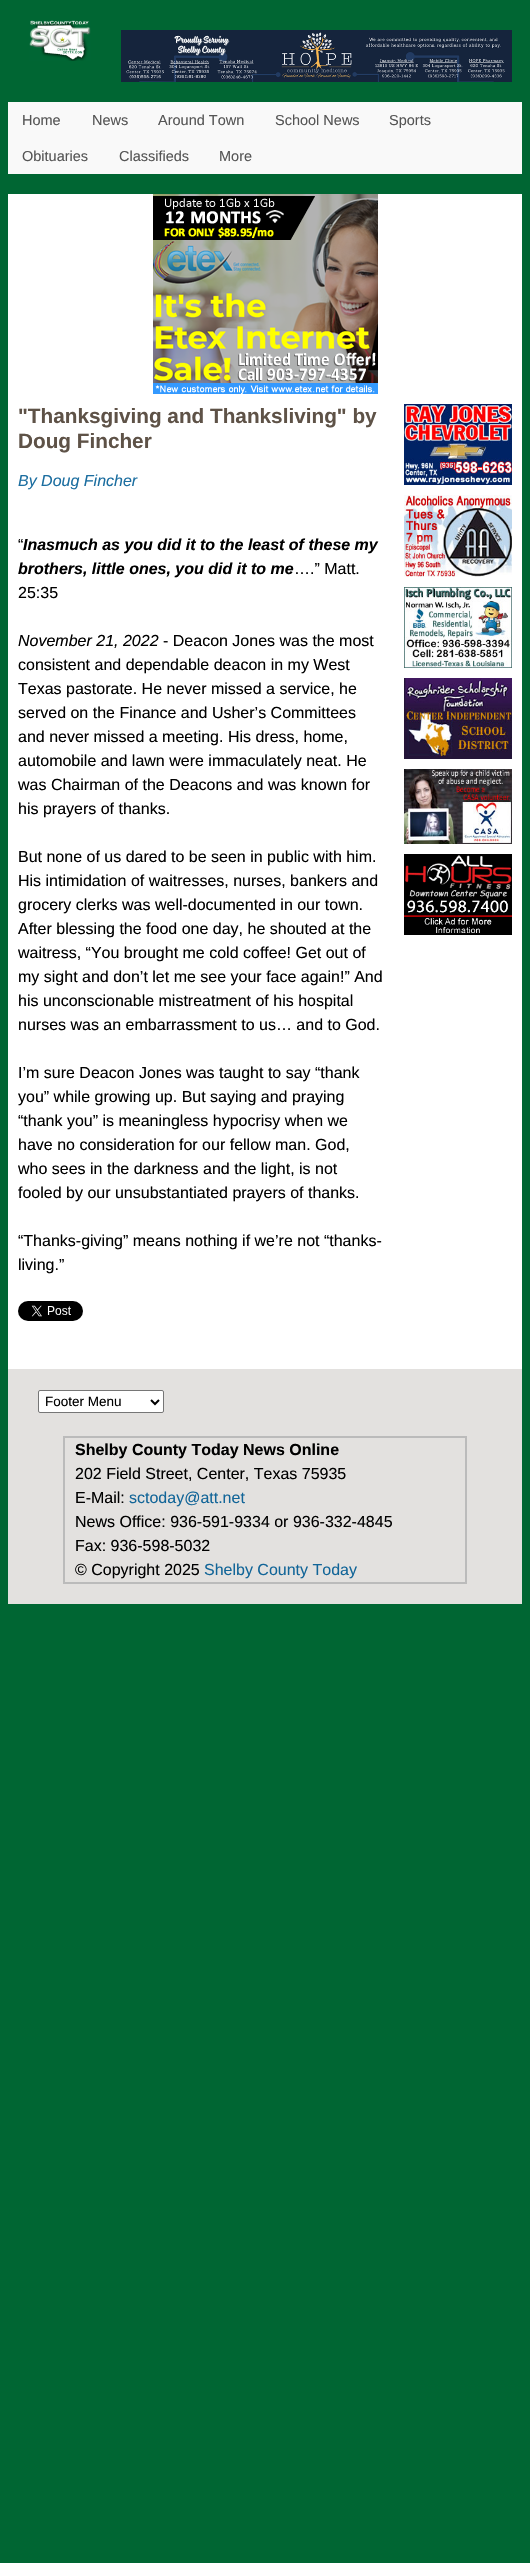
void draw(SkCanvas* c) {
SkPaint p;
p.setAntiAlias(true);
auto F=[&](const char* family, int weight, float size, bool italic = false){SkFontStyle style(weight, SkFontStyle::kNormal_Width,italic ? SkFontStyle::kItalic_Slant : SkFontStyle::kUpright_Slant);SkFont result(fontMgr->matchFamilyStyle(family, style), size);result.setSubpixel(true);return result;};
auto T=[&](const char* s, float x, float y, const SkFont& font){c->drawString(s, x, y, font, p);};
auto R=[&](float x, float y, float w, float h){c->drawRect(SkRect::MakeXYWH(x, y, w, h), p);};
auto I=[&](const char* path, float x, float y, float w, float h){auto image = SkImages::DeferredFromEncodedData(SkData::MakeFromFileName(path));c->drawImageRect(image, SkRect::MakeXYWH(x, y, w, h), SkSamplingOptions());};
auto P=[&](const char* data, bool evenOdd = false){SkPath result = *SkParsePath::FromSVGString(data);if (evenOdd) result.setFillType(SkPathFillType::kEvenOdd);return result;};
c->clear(0xff006633);
I("1.png",29,20,62,41);
I("2.png",121,30,391,52);
p.setColor(0xfff9f9f9);
R(8,102,514,72);
auto f1 = F("Liberation Sans",400,14.5);
p.setColor(0xff555555);
T("Home",22,125,f1);
T("News",92,125,f1);
T("Around Town",158,125,f1);
T("School News",275,125,f1);
T("Sports",389,125,f1);
T("Obituaries",22,161,f1);
T("Classifieds",119,161,f1);
T("More",219,161,f1);
p.setColor(0xffffffff);
R(8,194,514,1175);
I("3.png",153,194,225,200);
auto f2 = F("Liberation Sans",700,20.75);
p.setColor(0xff5e5247);
T("\"Thanksgiving and Thanksliving\" by",18,423,f2);
T("Doug Fincher",18,448,f2);
auto f3 = F("Liberation Sans",400,16,true);
p.setColor(0xff1c6ea0);
T("By Doug Fincher",18,486,f3);
auto f4 = F("Liberation Sans",400,16);
p.setColor(0xff000000);
T("“",18,550,f4);
auto f5 = F("Liberation Sans",700,16,true);
T("Inasmuch as you did it to the least of these my",23,550,f5);
T("brothers, little ones, you did it to me",18,574,f5);
T("….” Matt.",294,574,f4);
T("25:35",18,598,f4);
T("November 21, 2022",18,646,f3);
T("- Deacon Jones was the most",163,646,f4);
T("consistent and dependable deacon in my West",18,670,f4);
T("Texas pastorate. He never missed a service, he",18,694,f4);
T("served on the Finance and Usher’s Committees",18,718,f4);
T("and never missed a meeting. His dress, home,",18,742,f4);
T("automobile and lawn were immaculately neat. He",18,766,f4);
T("was Chairman of the Deacons and was known for",18,790,f4);
T("his prayers of thanks.",18,814,f4);
T("But none of us dared to be seen in public with him.",18,862,f4);
T("His intimidation of waitresses, nurses, bankers and",18,886,f4);
T("grocery clerks was well-documented in our town.",18,910,f4);
T("After blessing the food one day, he shouted at the",18,934,f4);
T("waitress, “You brought me cold coffee! Get out of",18,958,f4);
T("my sight and don’t let me see your face again!” And",18,982,f4);
T("his unconscionable mistreatment of his hospital",18,1006,f4);
T("nurses was an embarrassment to us… and to God.",18,1030,f4);
T("I’m sure Deacon Jones was taught to say “thank",18,1078,f4);
T("you” while growing up. But saying and praying",18,1102,f4);
T("“thank you” is meaningless hypocrisy when we",18,1126,f4);
T("have no consideration for our fellow man. God,",18,1150,f4);
T("who sees in the darkness and the light, is not",18,1174,f4);
T("fooled by our unsubstantiated prayers of thanks.",18,1198,f4);
T("“Thanks-giving” means nothing if we’re not “thanks-",18,1246,f4);
T("living.”",18,1270,f4);
I("4.png",18,1301,65,20);
I("5.png",404,404,108,81);
I("6.png",404,495,108,82);
I("7.png",404,587,108,81);
I("8.png",404,678,108,81);
I("9.png",404,769,108,75);
I("10.png",404,854,108,81);
p.setColor(0xffe3e1df);
R(8,1369,514,235);
p.setColor(0xffffffff);
c->drawRoundRect(SkRect::MakeXYWH(38.5,1390.5,125,22),1.5,1.5,p);
p.setStroke(true);
p.setStrokeWidth(1);
p.setColor(0xff767676);
c->drawRoundRect(SkRect::MakeXYWH(38.5,1390.5,125,22),1.5,1.5,p);
p.setStrokeWidth(2);
p.setColor(0xff000000);
c->drawPath(P("M151 1400l4 4l4-4"),p);
auto f6 = F("Liberation Sans",400,13.5);
p.setStroke(false);
T("Footer Menu",45,1406,f6);
p.setStroke(true);
p.setColor(0xffbbbbbb);
c->drawRect(SkRect::MakeXYWH(64,1437,402,146),p);
auto f7 = F("Liberation Sans",700,16);
p.setStroke(false);
p.setColor(0xff000000);
T("Shelby County Today News Online",75,1455,f7);
T("202 Field Street, Center, Texas 75935",75,1479,f4);
T("E-Mail:",75,1503,f4);
p.setColor(0xff126598);
T("sctoday@att.net",129,1503,f4);
p.setColor(0xff000000);
T("News Office: 936-591-9334 or 936-332-4845",75,1527,f4);
T("Fax: 936-598-5032",75,1551,f4);
T("© Copyright 2025",75,1575,f4);
p.setColor(0xff126598);
T("Shelby County Today",204,1575,f4);
}
